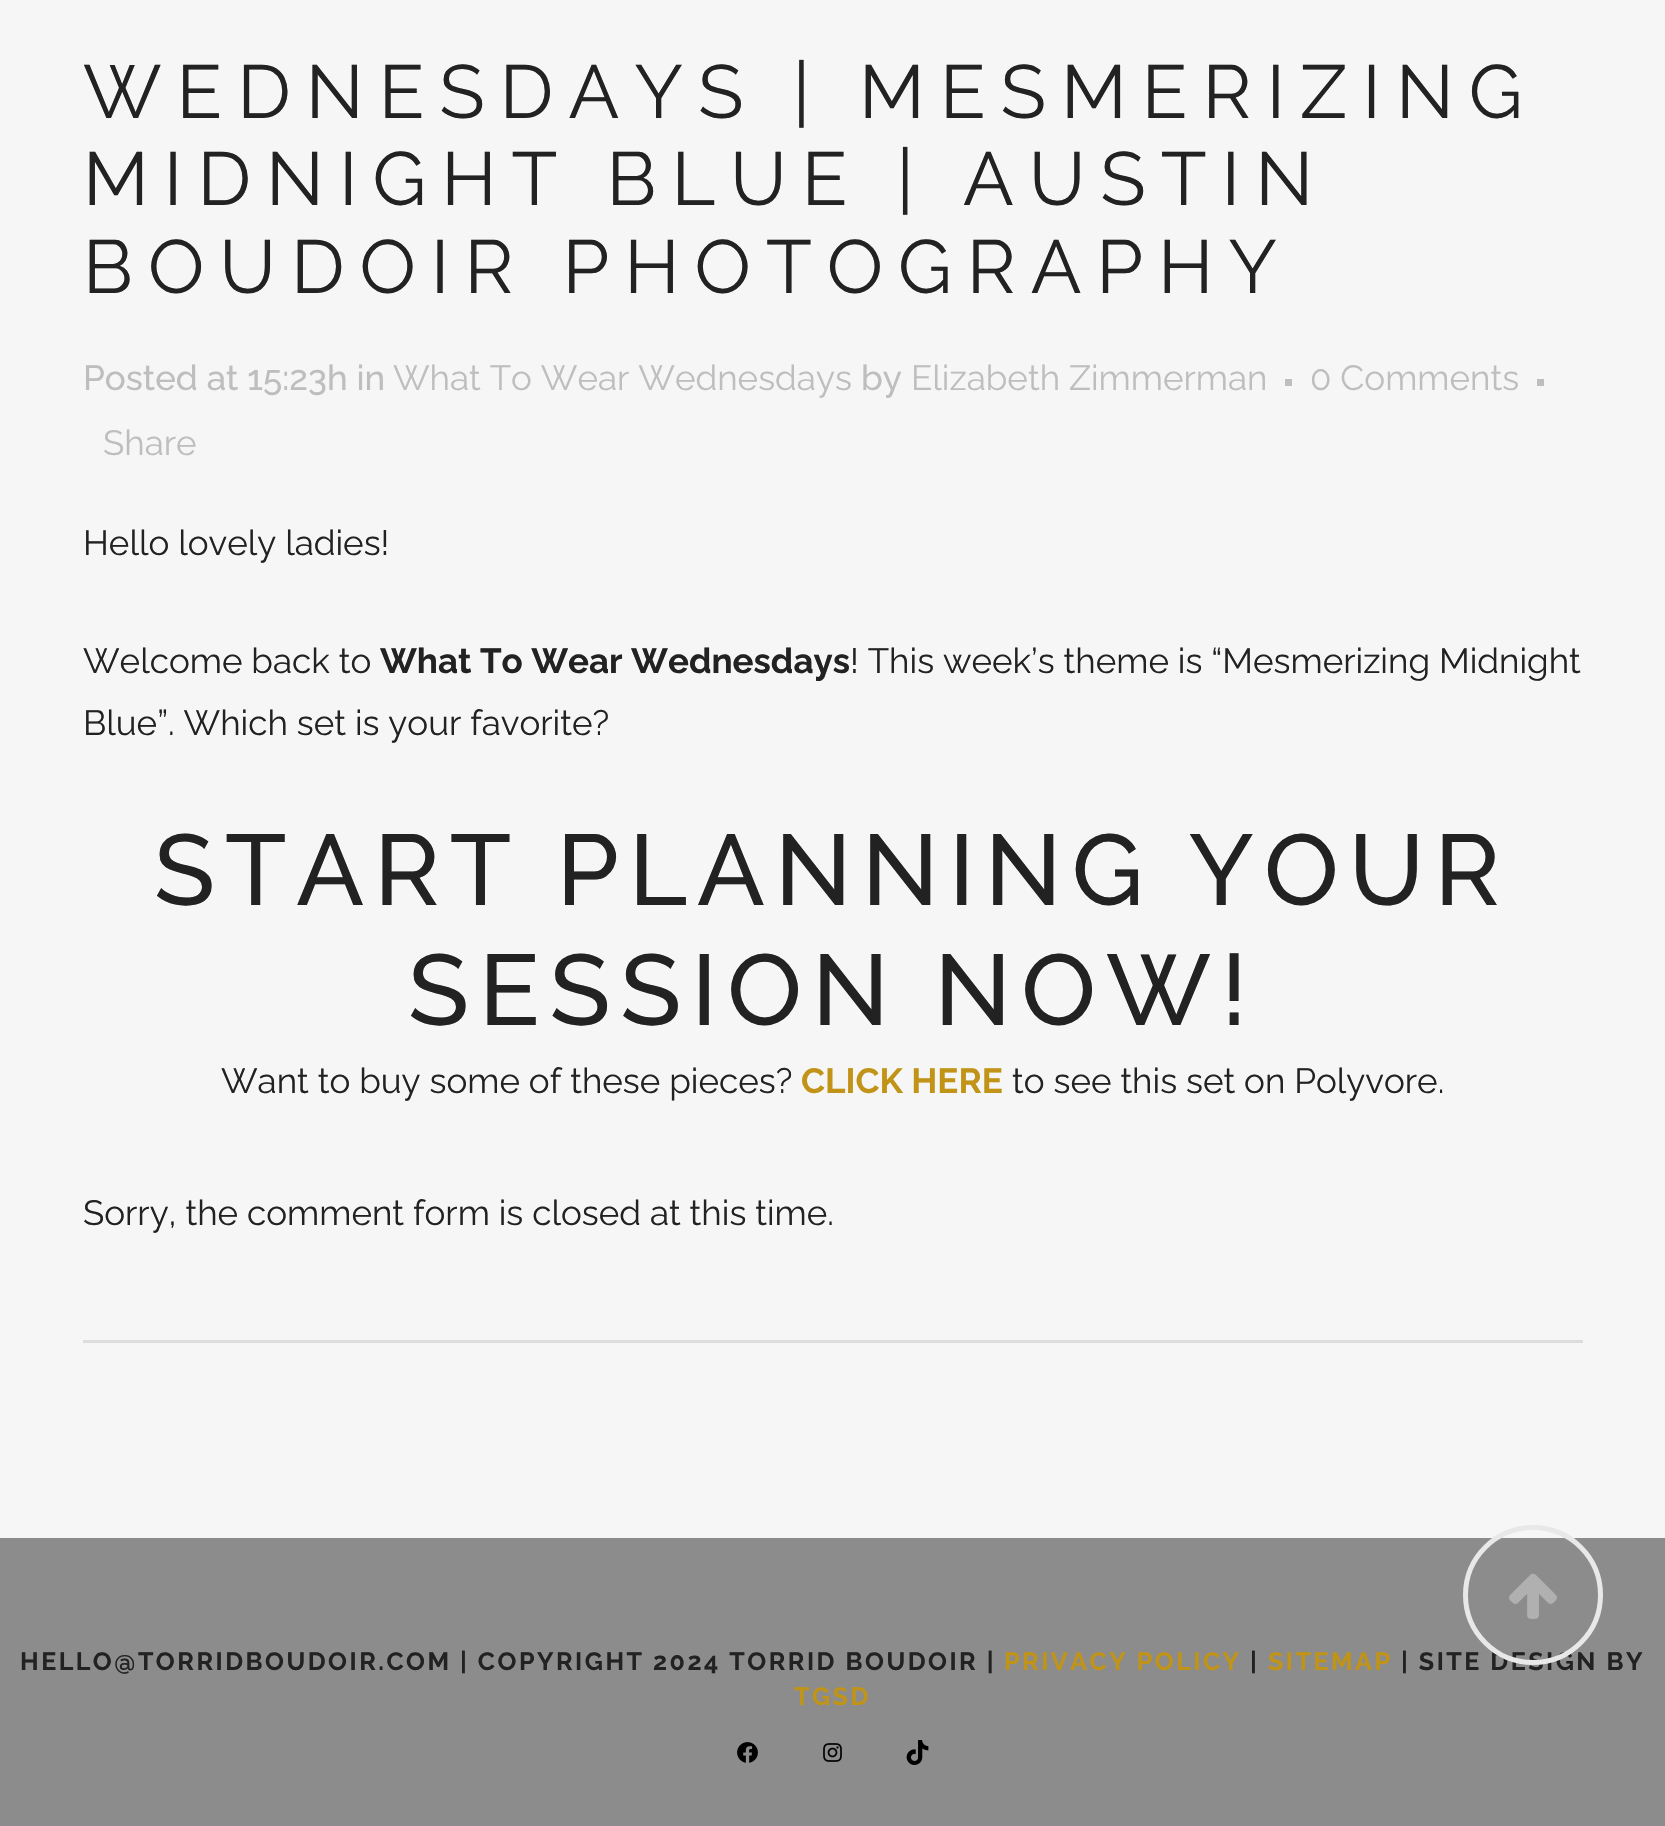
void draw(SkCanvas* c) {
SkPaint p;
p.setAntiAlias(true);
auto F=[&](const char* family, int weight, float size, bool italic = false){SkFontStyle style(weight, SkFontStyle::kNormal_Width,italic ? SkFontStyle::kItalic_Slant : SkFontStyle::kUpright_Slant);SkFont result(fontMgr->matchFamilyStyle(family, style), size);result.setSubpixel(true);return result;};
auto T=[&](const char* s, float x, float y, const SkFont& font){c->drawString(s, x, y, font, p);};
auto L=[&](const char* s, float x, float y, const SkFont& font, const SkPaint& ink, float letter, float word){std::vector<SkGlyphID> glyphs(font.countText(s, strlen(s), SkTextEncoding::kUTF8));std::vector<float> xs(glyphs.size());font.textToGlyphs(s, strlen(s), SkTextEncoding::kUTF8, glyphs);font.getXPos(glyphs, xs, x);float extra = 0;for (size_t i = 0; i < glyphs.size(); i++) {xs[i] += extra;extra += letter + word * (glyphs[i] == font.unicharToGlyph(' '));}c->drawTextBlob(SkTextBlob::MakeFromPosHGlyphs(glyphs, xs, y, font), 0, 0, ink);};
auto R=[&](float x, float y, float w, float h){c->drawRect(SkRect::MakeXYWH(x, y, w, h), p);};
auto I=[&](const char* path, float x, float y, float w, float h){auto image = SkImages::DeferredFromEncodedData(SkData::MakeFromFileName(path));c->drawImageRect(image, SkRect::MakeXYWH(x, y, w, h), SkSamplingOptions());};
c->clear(0xfff6f6f6);
auto f1 = F("Raleway",100,75);
p.setColor(0xff222222);
L("WEDNESDAYS | MESMERIZING",83,118,f1,p,15,0);
L("MIDNIGHT BLUE | AUSTIN",83,205,f1,p,15,0);
L("BOUDOIR PHOTOGRAPHY",83,293,f1,p,15,0);
auto f2 = F("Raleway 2",100,35);
p.setColor(0xffbebebe);
T("Posted at 15:23h in",83,390,f2);
auto f3 = F("Raleway",100,35);
T("What To Wear Wednesdays",393,390,f3);
T("by",861,390,f2);
T("Elizabeth Zimmerman",911,390,f3);
R(1285,379,7,7);
T("0 Comments",1310,390,f3);
R(1537,379,7,7);
T("Share",103,455,f3);
p.setColor(0xff222222);
T("Hello lovely ladies!",83,555,f3);
T("Welcome back to",83,673,f3);
auto f4 = F("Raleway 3",100,35);
T("What To Wear Wednesdays",380,673,f4);
T("! This week’s theme is “Mesmerizing Midnight",850,673,f3);
T("Blue”. Which set is your favorite?",83,735,f3);
auto f5 = F("Raleway 2",100,100);
L("START PLANNING YOUR",154,905,f5,p,10,0);
L("SESSION NOW!",408,1025,f5,p,10,0);
T("Want to buy some of these pieces?",221,1093,f3);
p.setColor(0xffc19417);
T("CLICK HERE",801,1093,f4);
p.setColor(0xff222222);
T("to see this set on Polyvore.",1012,1093,f3);
T("Sorry, the comment form is closed at this time.",83,1225,f3);
p.setColor(0xffdddddd);
R(83,1340,1500,3);
p.setColor(0xff8c8c8c);
R(0,1538,1665,288);
auto f6 = F("Raleway 3",100,25);
p.setColor(0xff222222);
L("| SITE DESIGN BY",1401,1670,f6,p,2.5,0);
p.setStroke(true);
p.setStrokeWidth(5);
p.setColor(0xffe8e8e8);
c->drawCircle(1533,1595,67.5,p);
I("1.png",1509,1573,48,46);
p.setStroke(false);
p.setColor(0xff222222);
L("HELLO@TORRIDBOUDOIR.COM | COPYRIGHT 2024 TORRID BOUDOIR |",20,1670,f6,p,2.5,0);
p.setColor(0xffc19417);
L("PRIVACY POLICY",1004,1670,f6,p,2.5,0);
p.setColor(0xff222222);
L("|",1250,1670,f6,p,2.5,0);
p.setColor(0xffc19417);
L("SITEMAP",1268,1670,f6,p,2.5,0);
L("TGSD",794,1705,f6,p,2.5,0);
I("2.png",737,1742,21,21);
I("3.png",823,1743,19,19);
I("4.png",906,1740,23,25);
}
